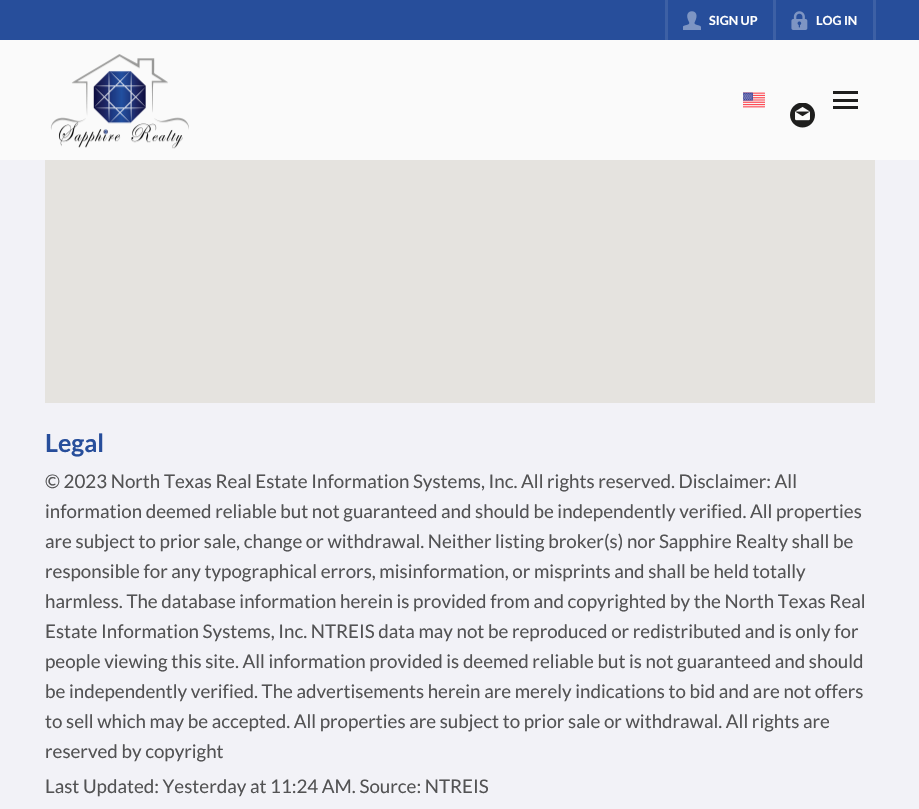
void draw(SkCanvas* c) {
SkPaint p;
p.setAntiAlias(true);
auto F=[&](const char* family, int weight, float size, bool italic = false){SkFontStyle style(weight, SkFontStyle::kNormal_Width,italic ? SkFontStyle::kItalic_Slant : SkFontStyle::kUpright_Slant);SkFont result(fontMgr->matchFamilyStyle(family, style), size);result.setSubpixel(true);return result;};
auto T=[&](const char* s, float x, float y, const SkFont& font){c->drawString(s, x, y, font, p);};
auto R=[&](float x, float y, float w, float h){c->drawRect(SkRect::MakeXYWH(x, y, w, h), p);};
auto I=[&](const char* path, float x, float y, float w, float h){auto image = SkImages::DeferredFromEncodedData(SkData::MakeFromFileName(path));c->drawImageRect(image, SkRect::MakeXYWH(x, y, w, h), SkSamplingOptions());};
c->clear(0xfff2f2f7);
p.setColor(0xff274e9b);
R(0,0,919,40);
p.setColor(0xff3d60a5);
R(873,0,3,40);
R(665,0,3,40);
I("1.png",683,11,18,19);
auto f1 = F("Lato",700,12.5);
p.setColor(0xffffffff);
T("SIGN UP",709,25,f1);
p.setColor(0xff3d60a5);
R(773,0,3,40);
I("2.png",791,11,17,19);
p.setColor(0xffffffff);
T("LOG IN",816,25,f1);
p.setColor(0xfffafafa);
R(0,40,919,120);
I("3.png",50,54,139,95);
I("4.png",743,92,22,16);
p.setColor(0xff1e1e1d);
R(833,91,25,3);
R(833,99,25,3);
R(833,106,25,3);
I("5.png",790,103,25,25);
p.setColor(0xffe5e3df);
R(45,160,830,243);
auto f2 = F("Lato",700,25);
p.setColor(0xff274e9b);
T("Legal",45,452,f2);
auto f3 = F("Lato",400,18.75);
p.setColor(0xff535354);
T("© 2023 North Texas Real Estate Information Systems, Inc. All rights reserved. Disclaimer: All",45,488,f3);
T("information deemed reliable but not guaranteed and should be independently verified. All properties",45,518,f3);
T("are subject to prior sale, change or withdrawal. Neither listing broker(s) nor Sapphire Realty shall be",45,548,f3);
T("responsible for any typographical errors, misinformation, or misprints and shall be held totally",45,578,f3);
T("harmless. The database information herein is provided from and copyrighted by the North Texas Real",45,608,f3);
T("Estate Information Systems, Inc. NTREIS data may not be reproduced or redistributed and is only for",45,638,f3);
T("people viewing this site. All information provided is deemed reliable but is not guaranteed and should",45,668,f3);
T("be independently verified. The advertisements herein are merely indications to bid and are not offers",45,698,f3);
T("to sell which may be accepted. All properties are subject to prior sale or withdrawal. All rights are",45,728,f3);
T("reserved by copyright",45,758,f3);
T("Last Updated: Yesterday at 11:24 AM. Source: NTREIS",45,793,f3);
}
